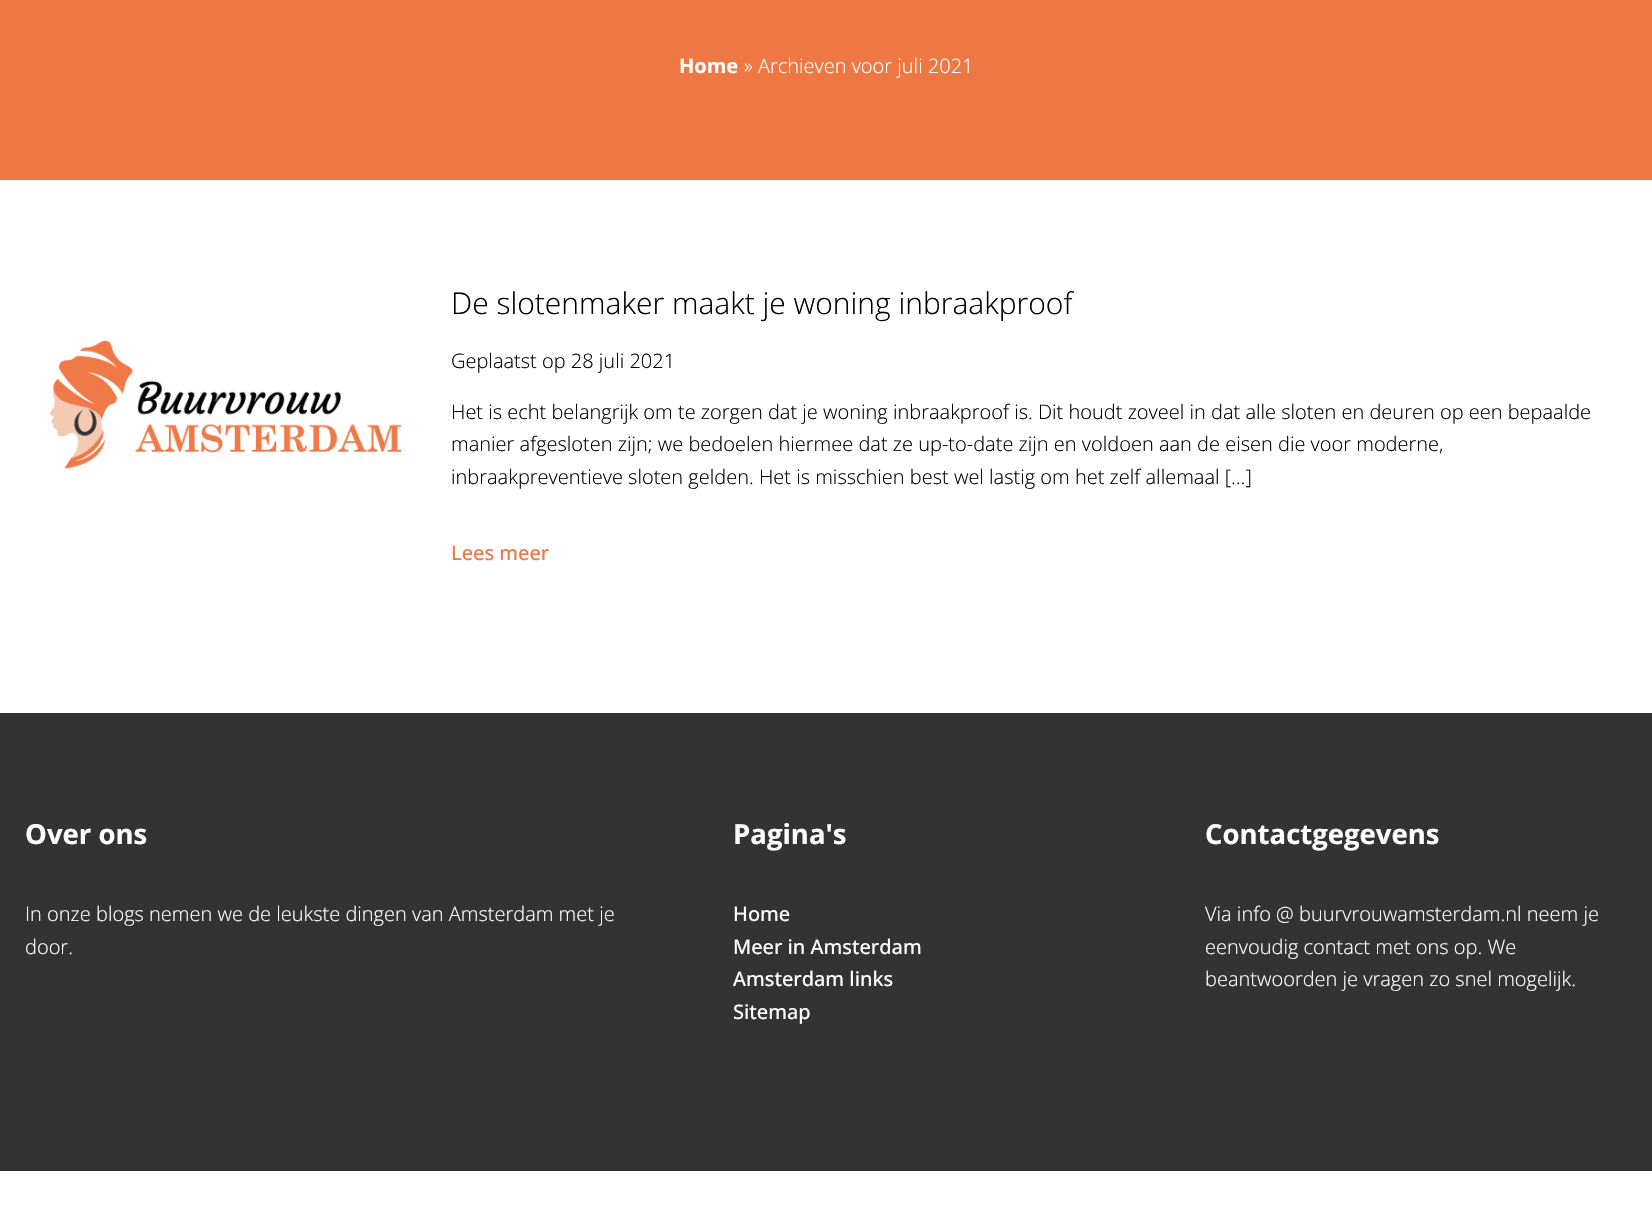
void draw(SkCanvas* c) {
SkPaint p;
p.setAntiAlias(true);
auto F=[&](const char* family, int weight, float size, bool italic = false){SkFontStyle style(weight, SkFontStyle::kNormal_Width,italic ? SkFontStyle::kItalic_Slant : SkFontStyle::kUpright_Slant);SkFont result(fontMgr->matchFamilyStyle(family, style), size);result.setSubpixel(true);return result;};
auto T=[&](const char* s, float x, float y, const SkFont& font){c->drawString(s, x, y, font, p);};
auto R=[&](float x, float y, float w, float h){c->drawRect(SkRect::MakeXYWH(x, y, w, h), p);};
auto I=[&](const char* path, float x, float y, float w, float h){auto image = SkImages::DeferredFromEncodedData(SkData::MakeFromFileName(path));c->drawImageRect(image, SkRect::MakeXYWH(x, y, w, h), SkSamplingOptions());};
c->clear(0xffffffff);
p.setColor(0xffef7743);
R(0,0,1652,180);
auto f1 = F("Open Sans",700,20);
p.setColor(0xffffffff);
T("Home",679,73,f1);
auto f2 = F("Open Sans",300,20);
T("» Archieven voor juli 2021",744,73,f2);
I("1.png",50,340,352,129);
auto f3 = F("Open Sans",300,30);
p.setColor(0xff000000);
T("De slotenmaker maakt je woning inbraakproof",451,314,f3);
T("Geplaatst op 28 juli 2021",451,368,f2);
T("Het is echt belangrijk om te zorgen dat je woning inbraakproof is. Dit houdt zoveel in dat alle sloten en deuren op een bepaalde",451,419,f2);
T("manier afgesloten zijn; we bedoelen hiermee dat ze up-to-date zijn en voldoen aan de eisen die voor moderne,",451,451,f2);
T("inbraakpreventieve sloten gelden. Het is misschien best wel lastig om het zelf allemaal […]",451,484,f2);
auto f4 = F("Open Sans",500,20);
p.setColor(0xffef7743);
T("Lees meer",451,560,f4);
p.setColor(0xff333333);
R(0,713,1652,458);
auto f5 = F("Open Sans",700,27.5);
p.setColor(0xffffffff);
T("Over ons",25,844,f5);
T("In onze blogs nemen we de leukste dingen van Amsterdam met je",25,921,f2);
T("door.",25,954,f2);
T("Pagina's",733,844,f5);
T("Home",733,921,f4);
T("Meer in Amsterdam",733,954,f4);
T("Amsterdam links",733,986,f4);
T("Sitemap",733,1019,f4);
T("Contactgegevens",1205,844,f5);
T("Via info @ buurvrouwamsterdam.nl neem je",1205,921,f2);
T("eenvoudig contact met ons op. We",1205,954,f2);
T("beantwoorden je vragen zo snel mogelijk.",1205,986,f2);
}
